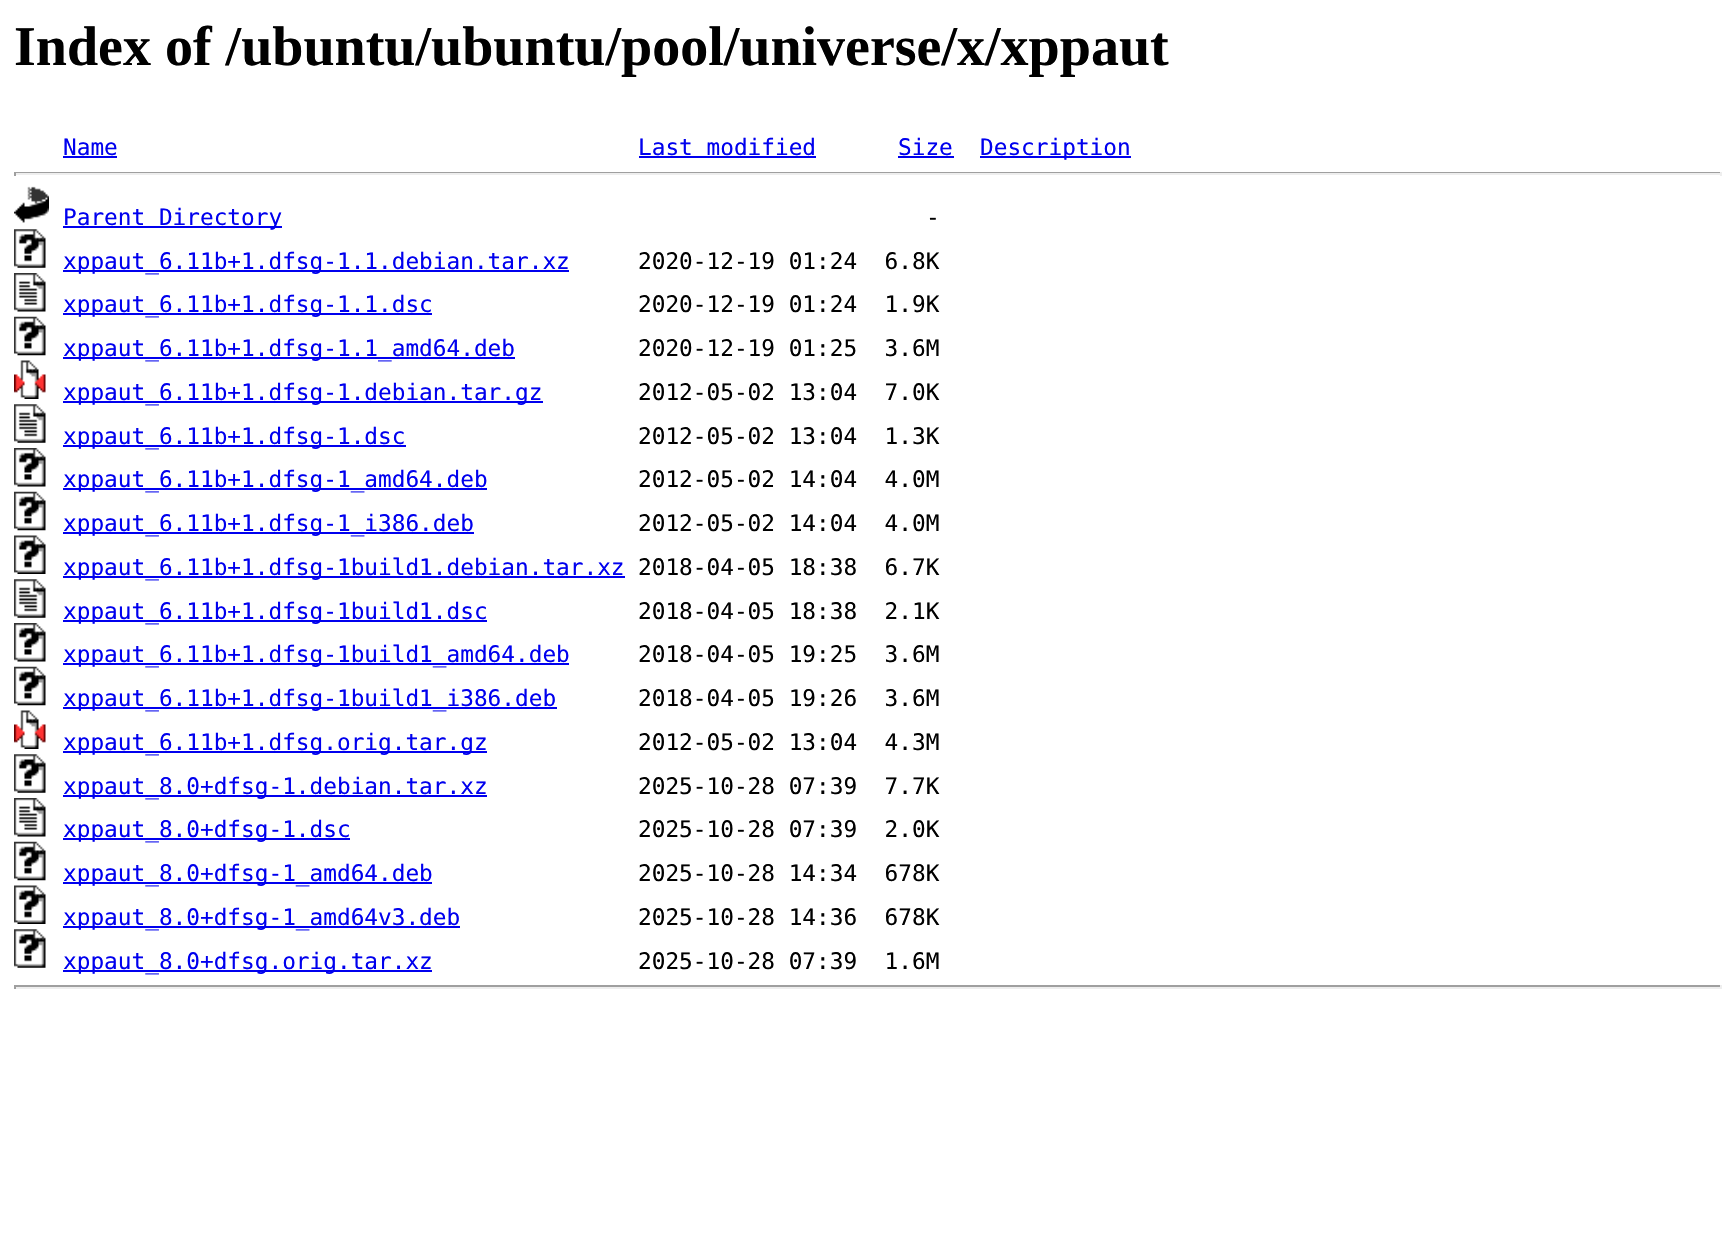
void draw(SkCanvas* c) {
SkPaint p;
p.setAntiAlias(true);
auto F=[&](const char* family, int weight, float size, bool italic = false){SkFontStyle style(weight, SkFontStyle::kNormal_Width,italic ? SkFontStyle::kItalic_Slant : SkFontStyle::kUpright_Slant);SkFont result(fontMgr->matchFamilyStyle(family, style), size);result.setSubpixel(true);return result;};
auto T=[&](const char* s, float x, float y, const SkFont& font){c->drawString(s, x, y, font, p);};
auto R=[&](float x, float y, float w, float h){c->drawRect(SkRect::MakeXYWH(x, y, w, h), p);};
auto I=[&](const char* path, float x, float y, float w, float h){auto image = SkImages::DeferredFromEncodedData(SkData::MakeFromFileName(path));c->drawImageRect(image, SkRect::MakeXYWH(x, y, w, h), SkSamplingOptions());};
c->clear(0xffffffff);
auto f1 = F("Liberation Serif",700,56);
p.setColor(0xff000000);
T("Index of /ubuntu/ubuntu/pool/universe/x/xppaut",14,65,f1);
auto f2 = F("DejaVu Sans Mono",400,22.75);
p.setColor(0xff0000ee);
T("Name",63,155,f2);
R(63,156,54,2);
T("Last modified",638,155,f2);
R(639,156,177,2);
T("Size",898,155,f2);
R(898,156,56,2);
R(980,156,151,2);
T("Description",980,155,f2);
p.setColor(0xff9f9f9f);
R(14,172,1708,1);
p.setColor(0xffeeeeee);
R(1720,172,2,4);
R(14,173,1708,2);
p.setColor(0xff9f9f9f);
R(14,172,2,4);
I("1.png",14,186,35,37);
p.setColor(0xff0000ee);
R(63,226,219,2);
T("Parent Directory",63,225,f2);
p.setColor(0xff000000);
T("-",926,225,f2);
I("2.png",14,229,32,39);
p.setColor(0xff0000ee);
R(63,270,506,2);
T("xppaut_6.11b+1.dfsg-1.1.debian.tar.xz",63,269,f2);
p.setColor(0xff000000);
T("2020-12-19 01:24  6.8K",638,269,f2);
I("3.png",14,273,32,39);
p.setColor(0xff0000ee);
R(63,313,369,2);
T("xppaut_6.11b+1.dfsg-1.1.dsc",63,312,f2);
p.setColor(0xff000000);
T("2020-12-19 01:24  1.9K",638,312,f2);
I("4.png",14,316,32,40);
p.setColor(0xff0000ee);
R(63,357,452,2);
T("xppaut_6.11b+1.dfsg-1.1_amd64.deb",63,356,f2);
p.setColor(0xff000000);
T("2020-12-19 01:25  3.6M",638,356,f2);
I("5.png",14,360,32,39);
p.setColor(0xff0000ee);
R(63,401,480,2);
T("xppaut_6.11b+1.dfsg-1.debian.tar.gz",63,400,f2);
p.setColor(0xff000000);
T("2012-05-02 13:04  7.0K",638,400,f2);
I("6.png",14,404,32,39);
p.setColor(0xff0000ee);
R(63,445,343,2);
T("xppaut_6.11b+1.dfsg-1.dsc",63,444,f2);
p.setColor(0xff000000);
T("2012-05-02 13:04  1.3K",638,444,f2);
I("7.png",14,448,32,39);
p.setColor(0xff0000ee);
R(63,488,424,2);
T("xppaut_6.11b+1.dfsg-1_amd64.deb",63,487,f2);
p.setColor(0xff000000);
T("2012-05-02 14:04  4.0M",638,487,f2);
I("4.png",14,491,32,40);
p.setColor(0xff0000ee);
R(63,532,411,2);
T("xppaut_6.11b+1.dfsg-1_i386.deb",63,531,f2);
p.setColor(0xff000000);
T("2012-05-02 14:04  4.0M",638,531,f2);
I("8.png",14,535,32,39);
p.setColor(0xff0000ee);
R(63,576,562,2);
T("xppaut_6.11b+1.dfsg-1build1.debian.tar.xz",63,575,f2);
p.setColor(0xff000000);
T("2018-04-05 18:38  6.7K",638,575,f2);
I("6.png",14,579,32,39);
p.setColor(0xff0000ee);
R(63,620,424,2);
T("xppaut_6.11b+1.dfsg-1build1.dsc",63,619,f2);
p.setColor(0xff000000);
T("2018-04-05 18:38  2.1K",638,619,f2);
I("7.png",14,623,32,39);
p.setColor(0xff0000ee);
R(63,663,506,2);
T("xppaut_6.11b+1.dfsg-1build1_amd64.deb",63,662,f2);
p.setColor(0xff000000);
T("2018-04-05 19:25  3.6M",638,662,f2);
I("4.png",14,666,32,40);
p.setColor(0xff0000ee);
R(63,707,494,2);
T("xppaut_6.11b+1.dfsg-1build1_i386.deb",63,706,f2);
p.setColor(0xff000000);
T("2018-04-05 19:26  3.6M",638,706,f2);
I("5.png",14,710,32,39);
p.setColor(0xff0000ee);
R(63,751,424,2);
T("xppaut_6.11b+1.dfsg.orig.tar.gz",63,750,f2);
p.setColor(0xff000000);
T("2012-05-02 13:04  4.3M",638,750,f2);
I("2.png",14,754,32,39);
p.setColor(0xff0000ee);
R(63,795,424,2);
T("xppaut_8.0+dfsg-1.debian.tar.xz",63,794,f2);
p.setColor(0xff000000);
T("2025-10-28 07:39  7.7K",638,794,f2);
I("3.png",14,798,32,39);
p.setColor(0xff0000ee);
R(63,838,287,2);
T("xppaut_8.0+dfsg-1.dsc",63,837,f2);
p.setColor(0xff000000);
T("2025-10-28 07:39  2.0K",638,837,f2);
I("4.png",14,841,32,40);
p.setColor(0xff0000ee);
R(63,882,369,2);
T("xppaut_8.0+dfsg-1_amd64.deb",63,881,f2);
p.setColor(0xff000000);
T("2025-10-28 14:34  678K",638,881,f2);
I("8.png",14,885,32,39);
p.setColor(0xff0000ee);
R(63,926,397,2);
T("xppaut_8.0+dfsg-1_amd64v3.deb",63,925,f2);
p.setColor(0xff000000);
T("2025-10-28 14:36  678K",638,925,f2);
I("2.png",14,929,32,39);
p.setColor(0xff0000ee);
R(63,970,369,2);
T("xppaut_8.0+dfsg.orig.tar.xz",63,969,f2);
p.setColor(0xff000000);
T("2025-10-28 07:39  1.6M",638,969,f2);
p.setColor(0xff9f9f9f);
R(14,985,1708,2);
p.setColor(0xffeeeeee);
R(1720,985,2,4);
R(14,987,1708,2);
p.setColor(0xff9f9f9f);
R(14,985,2,4);
}
